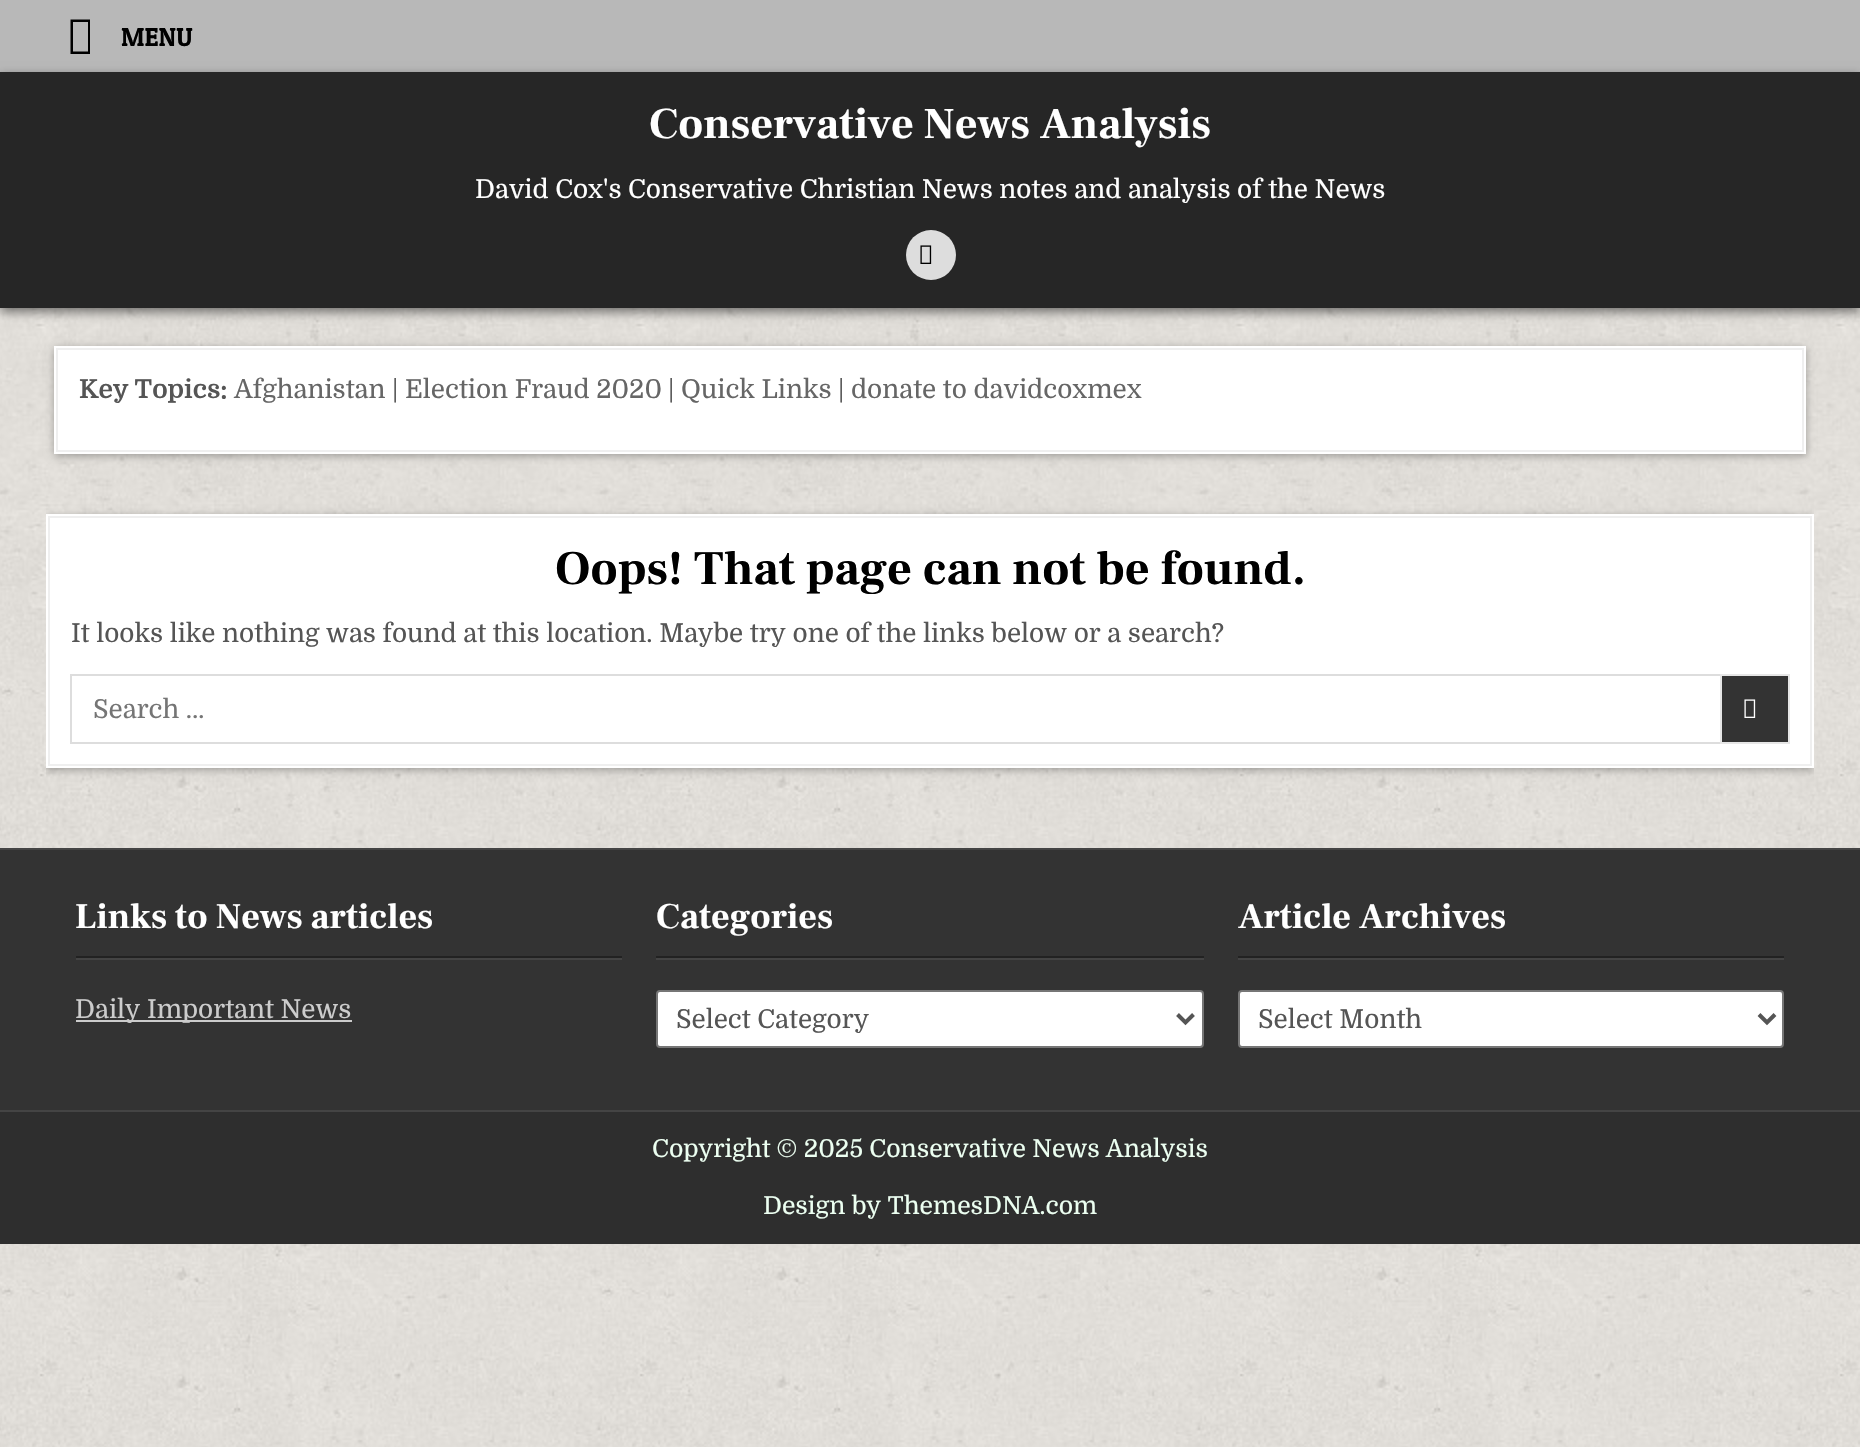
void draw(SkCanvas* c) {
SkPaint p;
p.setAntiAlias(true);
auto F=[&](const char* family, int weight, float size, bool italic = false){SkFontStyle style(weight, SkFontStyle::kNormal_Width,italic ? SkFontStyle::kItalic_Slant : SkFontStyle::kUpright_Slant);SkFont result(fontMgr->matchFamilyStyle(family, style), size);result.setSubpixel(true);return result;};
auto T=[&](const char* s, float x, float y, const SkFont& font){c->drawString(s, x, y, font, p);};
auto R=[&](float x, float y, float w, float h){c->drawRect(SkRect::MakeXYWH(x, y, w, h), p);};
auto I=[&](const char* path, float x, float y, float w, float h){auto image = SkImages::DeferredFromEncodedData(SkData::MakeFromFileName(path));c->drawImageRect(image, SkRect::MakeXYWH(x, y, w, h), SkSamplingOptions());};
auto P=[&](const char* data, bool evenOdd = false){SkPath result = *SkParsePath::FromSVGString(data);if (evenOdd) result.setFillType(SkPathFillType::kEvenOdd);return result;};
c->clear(0xffffffff);
I("1.png",0,308,1860,1139);
p.setColor(0xffb8b8b8);
R(0,0,1860,72);
p.setColor(0xff000000);
c->drawPath(P("M70.5 54v-34.5h19.5v34.5zm2.5-2.5h15v-29.5h-15z"),p);
auto f1 = F("Patua One",400,26);
T("MENU",121,46,f1);
p.setColor(0x80000000);
p.setMaskFilter(SkMaskFilter::MakeBlur(kNormal_SkBlurStyle, 5));
c->drawRect(SkRect::MakeXYWH(0,76,1860,236),p);
p.setMaskFilter(nullptr);
p.setColor(0xff262626);
R(0,72,1860,236);
auto f2 = F("Frank Ruhl Libre",700,44);
p.setColor(0xffffffff);
T("Conservative News Analysis",649,138,f2);
auto f3 = F("Domine",400,26);
T("David Cox's Conservative Christian News notes and analysis of the News",475,198,f3);
p.setColor(0xffdddddd);
c->drawCircle(931,255,25,p);
I("2.png",920,245,12,19);
p.setColor(0x4d000000);
p.setMaskFilter(SkMaskFilter::MakeBlur(kNormal_SkBlurStyle, 4));
c->drawRect(SkRect::MakeXYWH(54,348,1752,108),p);
p.setMaskFilter(nullptr);
p.setColor(0xffffffff);
R(54,346,1752,108);
p.setStroke(true);
p.setStrokeWidth(2);
p.setColor(0xffefefef);
c->drawRect(SkRect::MakeXYWH(57,349,1746,102),p);
auto f4 = F("Domine",700,26);
p.setStroke(false);
p.setColor(0xff555555);
T("Key Topics:",79,398,f4);
p.setColor(0xff666666);
T("Afghanistan",234,398,f3);
p.setColor(0xff555555);
T("|",392,398,f3);
p.setColor(0xff666666);
T("Election Fraud 2020",405,398,f3);
p.setColor(0xff555555);
T("|",668,398,f3);
p.setColor(0xff666666);
T("Quick Links",681,398,f3);
p.setColor(0xff555555);
T("|",838,398,f3);
p.setColor(0xff666666);
T("donate to davidcoxmex",851,398,f3);
c->save();
c->clipRect(SkRect::MakeXYWH(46,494,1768,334));
p.setColor(0x4d000000);
p.setMaskFilter(SkMaskFilter::MakeBlur(kNormal_SkBlurStyle, 4));
c->drawRect(SkRect::MakeXYWH(46,516,1768,254),p);
p.setMaskFilter(nullptr);
c->restore();
p.setColor(0xffffffff);
R(46,514,1768,254);
p.setStroke(true);
p.setColor(0xffefefef);
c->drawRect(SkRect::MakeXYWH(49,517,1762,248),p);
c->save();
c->clipRect(SkRect::MakeXYWH(78,546,1704,48));
auto f5 = F("Frank Ruhl Libre",700,48);
p.setStroke(false);
p.setColor(0xff000000);
T("Oops! That page can not be found.",555,584,f5);
c->restore();
p.setColor(0xff555555);
T("It looks like nothing was found at this location. Maybe try one of the links below or a search?",71,642,f3);
p.setStroke(true);
p.setColor(0xffdddddd);
c->drawRect(SkRect::MakeXYWH(71,675,1718,68),p);
p.setStroke(false);
p.setColor(0xff757575);
T("Search …",93,718,f3);
p.setColor(0xff333333);
c->drawRect(SkRect::MakeXYWH(1721,675,68,68),p);
p.setStroke(true);
p.setColor(0xffe6e6e6);
c->drawRect(SkRect::MakeXYWH(1721,675,68,68),p);
I("3.png",1744,699,12,19);
p.setStroke(false);
p.setColor(0xff333333);
R(0,850,1860,260);
p.setColor(0xff444444);
R(0,848,1860,2);
R(76,958,546,2);
p.setColor(0xff222222);
R(76,956,546,2);
auto f6 = F("Frank Ruhl Libre",700,36);
p.setColor(0xffffffff);
T("Links to News articles",75,928,f6);
p.setColor(0xffcccccc);
R(76,1020,276,2);
T("Daily Important News",75,1018,f3);
p.setColor(0xff444444);
R(656,958,548,2);
p.setColor(0xff222222);
R(656,956,548,2);
p.setColor(0xffffffff);
T("Categories",656,928,f6);
c->drawRoundRect(SkRect::MakeXYWH(657,991,546,56),3,3,p);
p.setStroke(true);
p.setColor(0xff767676);
c->drawRoundRect(SkRect::MakeXYWH(657,991,546,56),3,3,p);
p.setStrokeWidth(4);
p.setColor(0xff555555);
c->drawPath(P("M1177.5 1014.5l8 8l8-8"),p);
p.setStroke(false);
T("Select Category",676,1028,f3);
p.setColor(0xff444444);
R(1238,958,546,2);
p.setColor(0xff222222);
R(1238,956,546,2);
p.setColor(0xffffffff);
T("Article Archives",1238,928,f6);
c->drawRoundRect(SkRect::MakeXYWH(1239,991,544,56),3,3,p);
p.setStroke(true);
p.setStrokeWidth(2);
p.setColor(0xff767676);
c->drawRoundRect(SkRect::MakeXYWH(1239,991,544,56),3,3,p);
p.setStrokeWidth(4);
p.setColor(0xff555555);
c->drawPath(P("M1759 1014.5l8 8l8-8"),p);
p.setStroke(false);
T("Select Month",1258,1028,f3);
p.setColor(0xff2e2e2e);
R(0,1112,1860,132);
p.setColor(0xff444444);
R(0,1110,1860,2);
auto f7 = F("Domine",400,24.7);
p.setColor(0xffecfff1);
T("Copyright © 2025 Conservative News Analysis",652,1157,f7);
T("Design by ThemesDNA.com",763,1214,f7);
}
